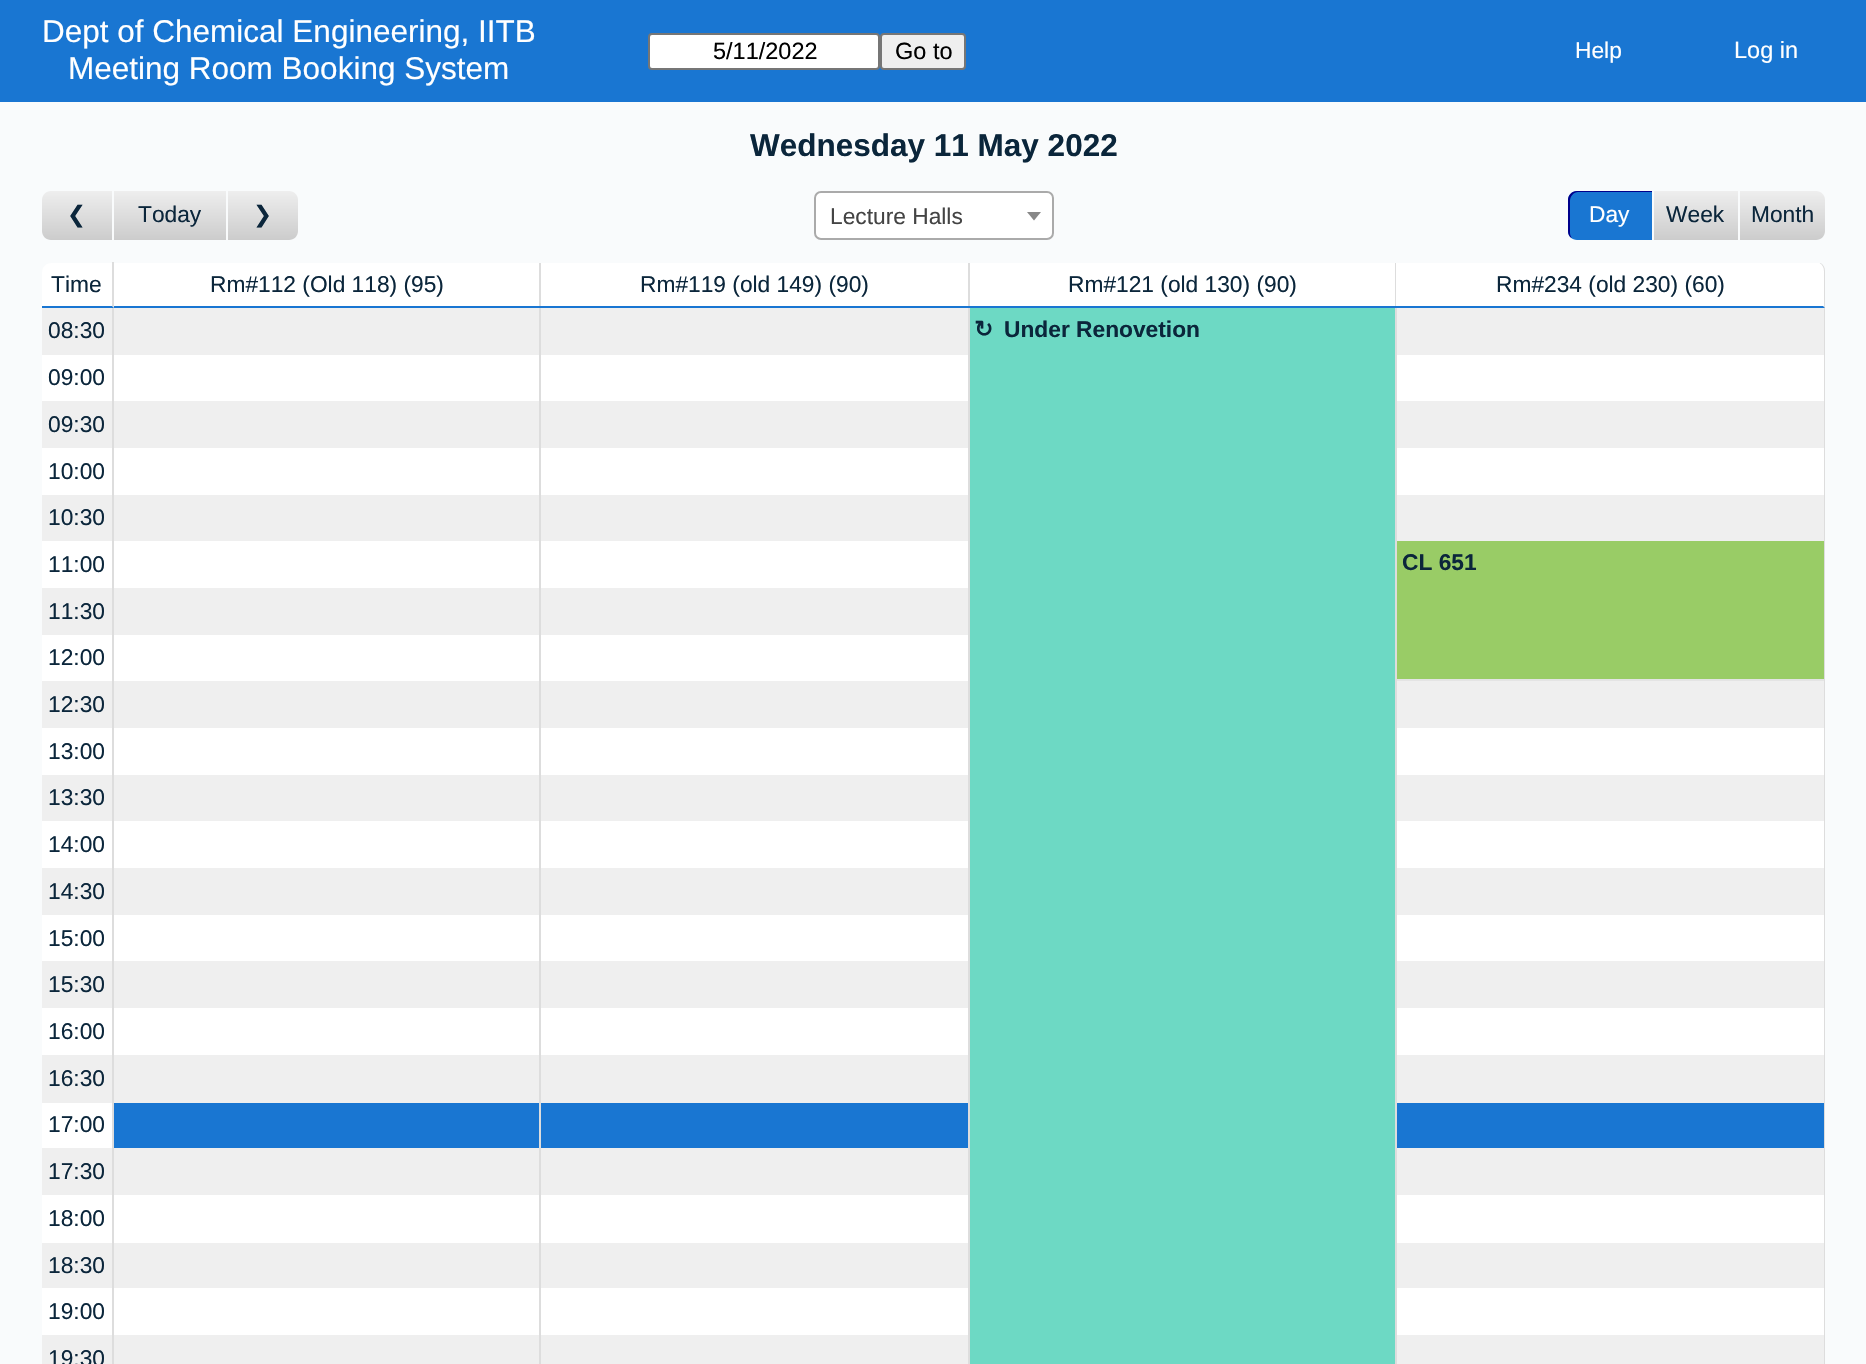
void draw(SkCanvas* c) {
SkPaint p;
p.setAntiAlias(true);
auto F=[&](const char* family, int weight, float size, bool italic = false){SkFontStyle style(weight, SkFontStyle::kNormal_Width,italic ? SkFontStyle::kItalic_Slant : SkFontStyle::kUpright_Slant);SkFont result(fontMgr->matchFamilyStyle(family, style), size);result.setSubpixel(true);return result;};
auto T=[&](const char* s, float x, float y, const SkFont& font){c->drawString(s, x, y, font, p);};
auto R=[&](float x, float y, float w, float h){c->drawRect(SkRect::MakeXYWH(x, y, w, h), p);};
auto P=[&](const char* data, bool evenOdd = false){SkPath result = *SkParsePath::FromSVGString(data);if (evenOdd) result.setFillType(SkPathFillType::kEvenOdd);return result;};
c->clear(0xfff9fbfc);
p.setColor(0xff1976d2);
R(0,0,1866,102);
auto f1 = F("Liberation Sans",400,31.5);
p.setColor(0xffffffff);
T("Dept of Chemical Engineering, IITB",42,42,f1);
T("Meeting Room Booking System",68,79,f1);
c->drawRoundRect(SkRect::MakeXYWH(649,34,230,35),3,3,p);
p.setStroke(true);
p.setStrokeWidth(2);
p.setColor(0xff767676);
c->drawRoundRect(SkRect::MakeXYWH(649,34,230,35),3,3,p);
auto f2 = F("Liberation Sans",400,23.5);
p.setStroke(false);
p.setColor(0xff000000);
T("5/11/2022",713,59,f2);
p.setColor(0xffefefef);
c->drawRoundRect(SkRect::MakeXYWH(881,34,84,35),3,3,p);
p.setStroke(true);
p.setColor(0xff767676);
c->drawRoundRect(SkRect::MakeXYWH(881,34,84,35),3,3,p);
p.setStroke(false);
p.setColor(0xff000000);
T("Go to",895,59,f2);
auto f3 = F("Liberation Sans",400,22.75);
p.setColor(0xffffffff);
T("Help",1575,58,f3);
T("Log in",1734,58,f2);
auto f4 = F("Liberation Sans",700,31.5);
p.setColor(0xff0b263b);
T("Wednesday 11 May 2022",750,156,f4);
{
const SkColor colors[] = {0xffeeeeee,0xffcccccc};
const float stops[] = {0,1};
const SkPoint ends[] = {{77,191}, {77,240}};
p.setShader(SkGradientShader::MakeLinear(ends, colors, stops, 2, SkTileMode::kClamp));
p.setAlpha(255);
}
c->drawPath(P("M51 191h63v49h-63c-5 0-9-4-9-9v-31c0-5 4-9 9-9z"),p);
p.setShader(nullptr);
p.setColor(0xfff9fbfc);
R(112,191,2,49);
auto f5 = F("DejaVu Sans",400,22.75);
p.setColor(0xff0b263b);
T("❮",67,222,f5);
{
const SkColor colors[] = {0xffeeeeee,0xffcccccc};
const float stops[] = {0,1};
const SkPoint ends[] = {{170,191}, {170,240}};
p.setShader(SkGradientShader::MakeLinear(ends, colors, stops, 2, SkTileMode::kClamp));
p.setAlpha(255);
}
R(114,191,112,49);
p.setShader(nullptr);
p.setColor(0xff0b263b);
T("Today",138,222,f3);
{
const SkColor colors[] = {0xffeeeeee,0xffcccccc};
const float stops[] = {0,1};
const SkPoint ends[] = {{263,191}, {263,240}};
p.setShader(SkGradientShader::MakeLinear(ends, colors, stops, 2, SkTileMode::kClamp));
p.setAlpha(255);
}
c->drawPath(P("M228 191h61c5 0 9 4 9 9v31c0 5-4 9-9 9h-61z"),p);
p.setShader(nullptr);
p.setColor(0xff0b263b);
T("❯",253,222,f5);
p.setColor(0xffffffff);
c->drawRoundRect(SkRect::MakeXYWH(815,192,238,47),6,6,p);
p.setStroke(true);
p.setColor(0xffaaaaaa);
c->drawRoundRect(SkRect::MakeXYWH(815,192,238,47),6,6,p);
p.setStroke(false);
p.setColor(0xff444444);
T("Lecture Halls",830,224,f3);
p.setColor(0xff888888);
c->drawPath(P("M1027 212h14l-7 8.5z"),p);
p.setColor(0xff1976d2);
c->drawPath(P("M1577 191h77v49h-77c-5 0-9-4-9-9v-31c0-5 4-9 9-9z"),p);
p.setColor(0xff00008b);
c->drawPath(P("M1578 192h74v-1h-75c-5 0-9 4-9 9v31c0 3 1 6 4 7c-1-1-2-3-2-5v-32c0-5 4-9 8-9z"),p);
p.setColor(0xfff9fbfc);
R(1652,191,2,49);
p.setColor(0xffffffff);
T("Day",1589,222,f3);
{
const SkColor colors[] = {0xffeeeeee,0xffcccccc};
const float stops[] = {0,1};
const SkPoint ends[] = {{1696,191}, {1696,240}};
p.setShader(SkGradientShader::MakeLinear(ends, colors, stops, 2, SkTileMode::kClamp));
p.setAlpha(255);
}
R(1654,191,84,49);
p.setShader(nullptr);
p.setColor(0xff0b263b);
T("Week",1666,222,f3);
{
const SkColor colors[] = {0xffeeeeee,0xffcccccc};
const float stops[] = {0,1};
const SkPoint ends[] = {{1782,191}, {1782,240}};
p.setShader(SkGradientShader::MakeLinear(ends, colors, stops, 2, SkTileMode::kClamp));
p.setAlpha(255);
}
c->drawPath(P("M1740 191h76c5 0 9 4 9 9v31c0 5-4 9-9 9h-76z"),p);
p.setShader(nullptr);
p.setColor(0xff0b263b);
T("Month",1751,222,f3);
p.setColor(0xffffffff);
c->drawPath(P("M51 263h61v43h-70v-34c0-5 4-9 9-9z"),p);
p.setColor(0xffdddddd);
c->drawPath(P("M114 262v46l-2-2v-44z"),p);
p.setColor(0xff1976d2);
c->drawPath(P("M114 308l-2-2h-70v2z"),p);
p.setColor(0xff0b263b);
T("Time",51,292,f3);
p.setColor(0xffffffff);
R(114,263,425,43);
p.setColor(0xffdddddd);
R(539,263,2,1101);
R(968,263,2,1101);
p.setColor(0xff1976d2);
R(114,306,856,2);
p.setColor(0xff0b263b);
T("Rm#112 (Old 118) (95)",210,292,f3);
p.setColor(0xffffffff);
R(541,263,427,43);
p.setColor(0xff0b263b);
T("Rm#119 (old 149) (90)",640,292,f3);
p.setColor(0xffffffff);
R(970,263,425,43);
p.setColor(0xffdddddd);
R(1395,263,1,45);
p.setColor(0xff1976d2);
R(970,306,427,2);
p.setColor(0xff0b263b);
T("Rm#121 (old 130) (90)",1068,292,f3);
c->save();
c->clipRect(SkRect::MakeXYWH(42,263,1783,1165));
p.setColor(0xffffffff);
c->drawPath(P("M1396 262h420c4 0 8 4 8 9v35h-428z"),p);
p.setColor(0xffdddddd);
c->drawPath(P("M1823 306h1v-35c0-4-2-7-6-9h1c4 2 6 5 6 9v37z"),p);
c->restore();
p.setColor(0xff1976d2);
c->drawPath(P("M1396 306h427l2 2h-429z"),p);
p.setColor(0xff0b263b);
T("Rm#234 (old 230) (60)",1496,292,f3);
p.setColor(0xffefefef);
R(42,308,70,47);
p.setColor(0xffdddddd);
R(112,308,2,1056);
p.setColor(0xff0b263b);
T("08:30",48,338,f3);
p.setColor(0xffefefef);
R(114,308,425,47);
R(541,308,427,47);
p.setColor(0xffdddddd);
R(1395,308,2,1056);
p.setColor(0xff6dd9c4);
R(970,308,425,1056);
auto f6 = F("DejaVu Sans",700,22.75);
p.setColor(0xff0b263b);
T("↻",974,337,f6);
auto f7 = F("Liberation Sans",700,22.75);
T("Under Renovetion",1004,337,f7);
p.setColor(0xffefefef);
R(1397,308,427,47);
p.setColor(0xffdddddd);
R(1824,308,1,1056);
p.setColor(0xffffffff);
R(42,355,70,46);
p.setColor(0xff0b263b);
T("09:00",48,385,f3);
p.setColor(0xffffffff);
R(114,355,425,46);
R(541,355,427,46);
R(1397,355,427,46);
p.setColor(0xffefefef);
R(42,401,70,47);
p.setColor(0xff0b263b);
T("09:30",48,432,f3);
p.setColor(0xffefefef);
R(114,401,425,47);
R(541,401,427,47);
R(1397,401,427,47);
p.setColor(0xffffffff);
R(42,448,70,47);
p.setColor(0xff0b263b);
T("10:00",48,479,f3);
p.setColor(0xffffffff);
R(114,448,425,47);
R(541,448,427,47);
R(1397,448,427,47);
p.setColor(0xffefefef);
R(42,495,70,46);
p.setColor(0xff0b263b);
T("10:30",48,525,f3);
p.setColor(0xffefefef);
R(114,495,425,46);
R(541,495,427,46);
R(1397,495,427,46);
p.setColor(0xffffffff);
R(42,541,70,47);
p.setColor(0xff0b263b);
T("11:00",48,572,f3);
p.setColor(0xffffffff);
R(114,541,425,47);
R(541,541,427,47);
p.setColor(0xff99cc66);
R(1397,541,427,138);
p.setColor(0xffe4e4e4);
R(1397,679,427,2);
p.setColor(0xff0b263b);
T("CL 651",1402,570,f7);
p.setColor(0xffefefef);
R(42,588,70,47);
p.setColor(0xff0b263b);
T("11:30",48,619,f3);
p.setColor(0xffefefef);
R(114,588,425,47);
R(541,588,427,47);
p.setColor(0xffffffff);
R(42,635,70,46);
p.setColor(0xff0b263b);
T("12:00",48,665,f3);
p.setColor(0xffffffff);
R(114,635,425,46);
R(541,635,427,46);
p.setColor(0xffefefef);
R(42,681,70,47);
p.setColor(0xff0b263b);
T("12:30",48,712,f3);
p.setColor(0xffefefef);
R(114,681,425,47);
R(541,681,427,47);
R(1397,681,427,47);
p.setColor(0xffffffff);
R(42,728,70,47);
p.setColor(0xff0b263b);
T("13:00",48,759,f3);
p.setColor(0xffffffff);
R(114,728,425,47);
R(541,728,427,47);
R(1397,728,427,47);
p.setColor(0xffefefef);
R(42,775,70,46);
p.setColor(0xff0b263b);
T("13:30",48,805,f3);
p.setColor(0xffefefef);
R(114,775,425,46);
R(541,775,427,46);
R(1397,775,427,46);
p.setColor(0xffffffff);
R(42,821,70,47);
p.setColor(0xff0b263b);
T("14:00",48,852,f3);
p.setColor(0xffffffff);
R(114,821,425,47);
R(541,821,427,47);
R(1397,821,427,47);
p.setColor(0xffefefef);
R(42,868,70,47);
p.setColor(0xff0b263b);
T("14:30",48,899,f3);
p.setColor(0xffefefef);
R(114,868,425,47);
R(541,868,427,47);
R(1397,868,427,47);
p.setColor(0xffffffff);
R(42,915,70,46);
p.setColor(0xff0b263b);
T("15:00",48,946,f3);
p.setColor(0xffffffff);
R(114,915,425,46);
R(541,915,427,46);
R(1397,915,427,46);
p.setColor(0xffefefef);
R(42,961,70,47);
p.setColor(0xff0b263b);
T("15:30",48,992,f3);
p.setColor(0xffefefef);
R(114,961,425,47);
R(541,961,427,47);
R(1397,961,427,47);
p.setColor(0xffffffff);
R(42,1008,70,47);
p.setColor(0xff0b263b);
T("16:00",48,1039,f3);
p.setColor(0xffffffff);
R(114,1008,425,47);
R(541,1008,427,47);
R(1397,1008,427,47);
p.setColor(0xffefefef);
R(42,1055,70,48);
p.setColor(0xff0b263b);
T("16:30",48,1086,f3);
p.setColor(0xffefefef);
R(114,1055,425,48);
R(541,1055,427,48);
R(1397,1055,427,48);
p.setColor(0xffffffff);
R(42,1103,70,45);
p.setColor(0xff0b263b);
T("17:00",48,1132,f3);
p.setColor(0xff1976d2);
R(114,1103,425,45);
R(541,1103,427,45);
R(1397,1103,427,45);
p.setColor(0xffefefef);
R(42,1148,70,47);
p.setColor(0xff0b263b);
T("17:30",48,1179,f3);
p.setColor(0xffefefef);
R(114,1148,425,47);
R(541,1148,427,47);
R(1397,1148,427,47);
p.setColor(0xffffffff);
R(42,1195,70,48);
p.setColor(0xff0b263b);
T("18:00",48,1226,f3);
p.setColor(0xffffffff);
R(114,1195,425,48);
R(541,1195,427,48);
R(1397,1195,427,48);
p.setColor(0xffefefef);
R(42,1243,70,45);
p.setColor(0xff0b263b);
T("18:30",48,1273,f3);
p.setColor(0xffefefef);
R(114,1243,425,45);
R(541,1243,427,45);
R(1397,1243,427,45);
p.setColor(0xffffffff);
R(42,1288,70,47);
p.setColor(0xff0b263b);
T("19:00",48,1319,f3);
p.setColor(0xffffffff);
R(114,1288,425,47);
R(541,1288,427,47);
R(1397,1288,427,47);
p.setColor(0xffefefef);
R(42,1335,70,29);
p.setColor(0xff0b263b);
T("19:30",48,1366,f3);
p.setColor(0xffefefef);
R(114,1335,425,29);
R(541,1335,427,29);
R(1397,1335,427,29);
}
